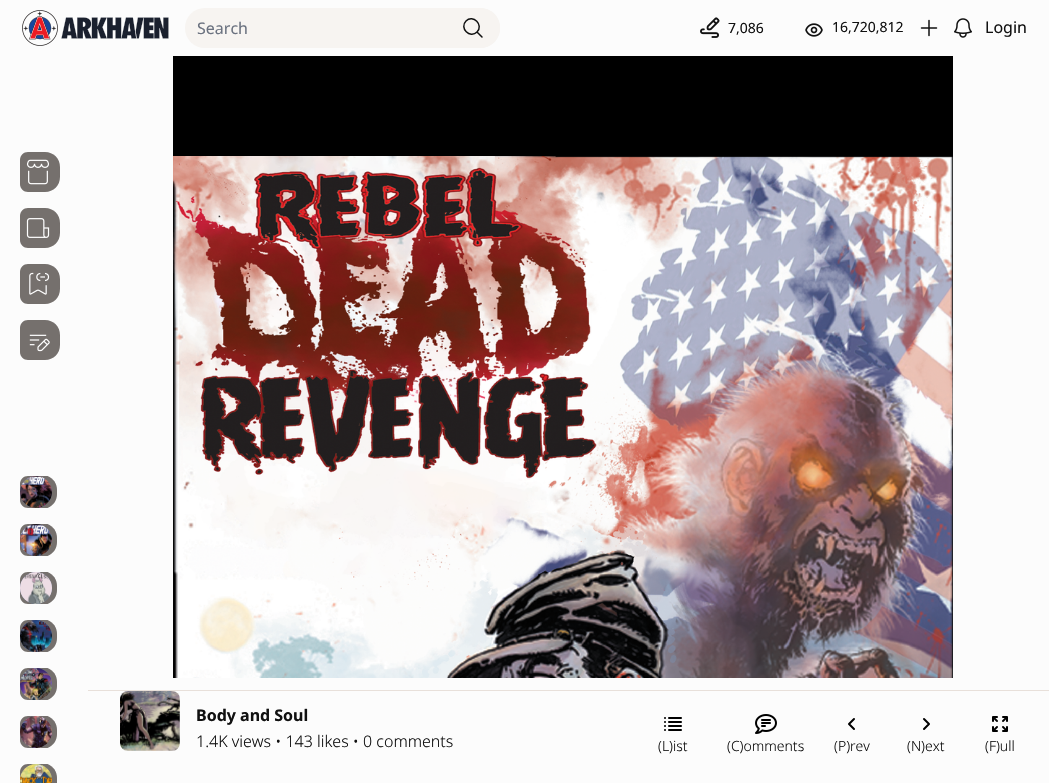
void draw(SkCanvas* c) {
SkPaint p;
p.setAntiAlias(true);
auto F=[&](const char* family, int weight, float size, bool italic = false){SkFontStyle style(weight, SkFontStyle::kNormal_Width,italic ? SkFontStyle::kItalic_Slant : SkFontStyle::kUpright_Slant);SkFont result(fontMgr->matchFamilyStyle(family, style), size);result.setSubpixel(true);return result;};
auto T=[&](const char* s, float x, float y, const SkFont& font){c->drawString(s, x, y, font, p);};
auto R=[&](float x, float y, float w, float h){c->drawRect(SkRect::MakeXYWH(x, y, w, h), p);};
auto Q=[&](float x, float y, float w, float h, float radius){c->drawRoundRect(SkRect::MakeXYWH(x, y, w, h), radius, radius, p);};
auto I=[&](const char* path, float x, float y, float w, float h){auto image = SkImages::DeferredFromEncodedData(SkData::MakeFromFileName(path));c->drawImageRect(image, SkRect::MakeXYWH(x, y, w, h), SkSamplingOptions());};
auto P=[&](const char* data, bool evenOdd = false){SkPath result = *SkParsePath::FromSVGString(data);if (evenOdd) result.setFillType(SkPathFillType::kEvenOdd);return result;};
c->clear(0xfffcfcfc);
I("1.png",22,10,147,36);
p.setColor(0xfff7f4f1);
Q(185,8,315,40,20);
auto f1 = F("Noto Sans",400,16);
p.setColor(0xff6b7280);
T("Search",197,34,f1);
p.setColor(0xfff7f4f1);
c->drawPath(P("M447 8h33c11 0 20 9 20 20c0 11-9 20-20 20h-33z"),p);
p.setStroke(true);
p.setStrokeWidth(1.5);
p.setStrokeCap(SkPaint::kRound_Cap);
p.setStrokeJoin(SkPaint::kRound_Join);
p.setColor(0xff111111);
c->drawPath(P("M482 37l-5-5m0 0c7-7-4-18-11-11c-7 7 4 18 11 11z"),p);
I("2.png",700,17,20,21);
auto f2 = F("Noto Sans",400,14);
p.setStroke(false);
T("7,086",728,33,f2);
I("3.png",805,23,18,14);
T("16,720,812",832,32,f2);
p.setStroke(true);
c->drawPath(P("M929 20.5v15m7.5-7.5h-15"),p);
I("4.png",954,18,18,20);
p.setStroke(false);
T("Login",985,33,f1);
p.setColor(0xff75706d);
c->drawPath(P("M28 152h17c8.5 0 15 6.5 15 15v10c0 8.5-6.5 15-15 15h-17c-4.5 0-8-3.5-8-8v-24c0-4.5 3.5-8 8-8z"),p);
I("5.png",26,159,23,26);
c->drawPath(P("M28 208h17c8.5 0 15 6.5 15 15v10c0 8.5-6.5 15-15 15h-17c-4.5 0-8-3.5-8-8v-24c0-4.5 3.5-8 8-8z"),p);
I("6.png",26,218,24,20);
c->drawPath(P("M28 264h17c8.5 0 15 6.5 15 15v10c0 8.5-6.5 15-15 15h-17c-4.5 0-8-3.5-8-8v-24c0-4.5 3.5-8 8-8z"),p);
I("7.png",29,272,21,23);
c->drawPath(P("M28 320h17c8.5 0 15 6.5 15 15v10c0 8.5-6.5 15-15 15h-17c-4.5 0-8-3.5-8-8v-24c0-4.5 3.5-8 8-8z"),p);
I("8.png",29,334,21,18);
c->save();
c->clipPath(P("M28 476h28c4.5 0 8 3.5 8 8v16c0 4.5-3.5 8-8 8h-28c-4.5 0-8-3.5-8-8v-16c0-4.5 3.5-8 8-8z"),true);
c->drawPath(P("M20 475h22c8.5 0 15 6.5 15 15v4c0 8.5-6.5 15-15 15h-22z"),p);
c->restore();
p.setColor(0xff7181a6);
c->drawCircle(36,492,16,p);
I("9.png",20,476,32,32);
c->save();
c->clipPath(P("M28 524h28c4.5 0 8 3.5 8 8v16c0 4.5-3.5 8-8 8h-28c-4.5 0-8-3.5-8-8v-16c0-4.5 3.5-8 8-8z"),true);
p.setColor(0xff75706d);
c->drawPath(P("M20 523h22c8.5 0 15 6.5 15 15v4c0 8.5-6.5 15-15 15h-22z"),p);
c->restore();
p.setColor(0xff7181a6);
c->drawCircle(36,540,16,p);
I("10.png",20,524,32,32);
c->save();
c->clipPath(P("M28 572h28c4.5 0 8 3.5 8 8v16c0 4.5-3.5 8-8 8h-28c-4.5 0-8-3.5-8-8v-16c0-4.5 3.5-8 8-8z"),true);
p.setColor(0xff75706d);
c->drawPath(P("M20 571h22c8.5 0 15 6.5 15 15v4c0 8.5-6.5 15-15 15h-22z"),p);
c->restore();
p.setColor(0xff7181a6);
c->drawCircle(36,588,16,p);
I("11.png",20,572,32,32);
c->save();
c->clipPath(P("M28 620h28c4.5 0 8 3.5 8 8v16c0 4.5-3.5 8-8 8h-28c-4.5 0-8-3.5-8-8v-16c0-4.5 3.5-8 8-8z"),true);
p.setColor(0xff75706d);
c->drawPath(P("M20 619h22c8.5 0 15 6.5 15 15v4c0 8.5-6.5 15-15 15h-22z"),p);
c->restore();
p.setColor(0xff7181a6);
c->drawCircle(36,636,16,p);
I("12.png",20,620,32,32);
c->save();
c->clipPath(P("M28 668h28c4.5 0 8 3.5 8 8v16c0 4.5-3.5 8-8 8h-28c-4.5 0-8-3.5-8-8v-16c0-4.5 3.5-8 8-8z"),true);
p.setColor(0xff75706d);
c->drawPath(P("M20 667h22c8.5 0 15 6.5 15 15v4c0 8.5-6.5 15-15 15h-22z"),p);
c->restore();
p.setColor(0xff7181a6);
c->drawCircle(36,684,16,p);
I("13.png",20,668,32,32);
c->save();
c->clipPath(P("M28 716h28c4.5 0 8 3.5 8 8v16c0 4.5-3.5 8-8 8h-28c-4.5 0-8-3.5-8-8v-16c0-4.5 3.5-8 8-8z"),true);
p.setColor(0xff75706d);
c->drawPath(P("M20 715h22c8.5 0 15 6.5 15 15v4c0 8.5-6.5 15-15 15h-22z"),p);
c->restore();
p.setColor(0xff7181a6);
c->drawCircle(36,732,16,p);
I("14.png",20,716,32,32);
c->save();
c->clipPath(P("M28 764h28c4.5 0 8 3.5 8 8v16c0 4.5-3.5 8-8 8h-28c-4.5 0-8-3.5-8-8v-16c0-4.5 3.5-8 8-8z"),true);
p.setColor(0xff75706d);
c->drawPath(P("M20 763h22c8.5 0 15 6.5 15 15v4c0 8.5-6.5 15-15 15h-22z"),p);
c->restore();
p.setColor(0xff7181a6);
c->drawCircle(36,780,16,p);
I("15.png",20,764,32,19);
p.setColor(0xff000000);
R(173,56,780,100);
I("16.png",173,156,780,522);
p.setColor(0xffe8e0da);
R(88,690,961,1);
I("17.png",120,691,60,60);
auto f3 = F("Noto Sans",700,16);
p.setColor(0xff111111);
T("Body and Soul",196,721,f3);
auto f4 = F("Noto Sans",300,16);
T("1.4K views • 143 likes • 0 comments",196,747,f4);
I("18.png",664,717,18,14);
auto f5 = F("Noto Sans",300,14);
T("(L)ist",658,751,f5);
I("19.png",755,714,22,20);
T("(C)omments",727,751,f5);
p.setStroke(true);
p.setStrokeWidth(2);
p.setColor(0xff000000);
c->drawPath(P("M854 719l-5 5l5 5"),p);
p.setStroke(false);
p.setColor(0xff111111);
T("(P)rev",834,751,f5);
p.setStroke(true);
p.setColor(0xff000000);
c->drawPath(P("M924 719l5 5l-5 5"),p);
p.setStroke(false);
p.setColor(0xff111111);
T("(N)ext",907,751,f5);
I("20.png",992,716,16,16);
T("(F)ull",985,751,f5);
}
